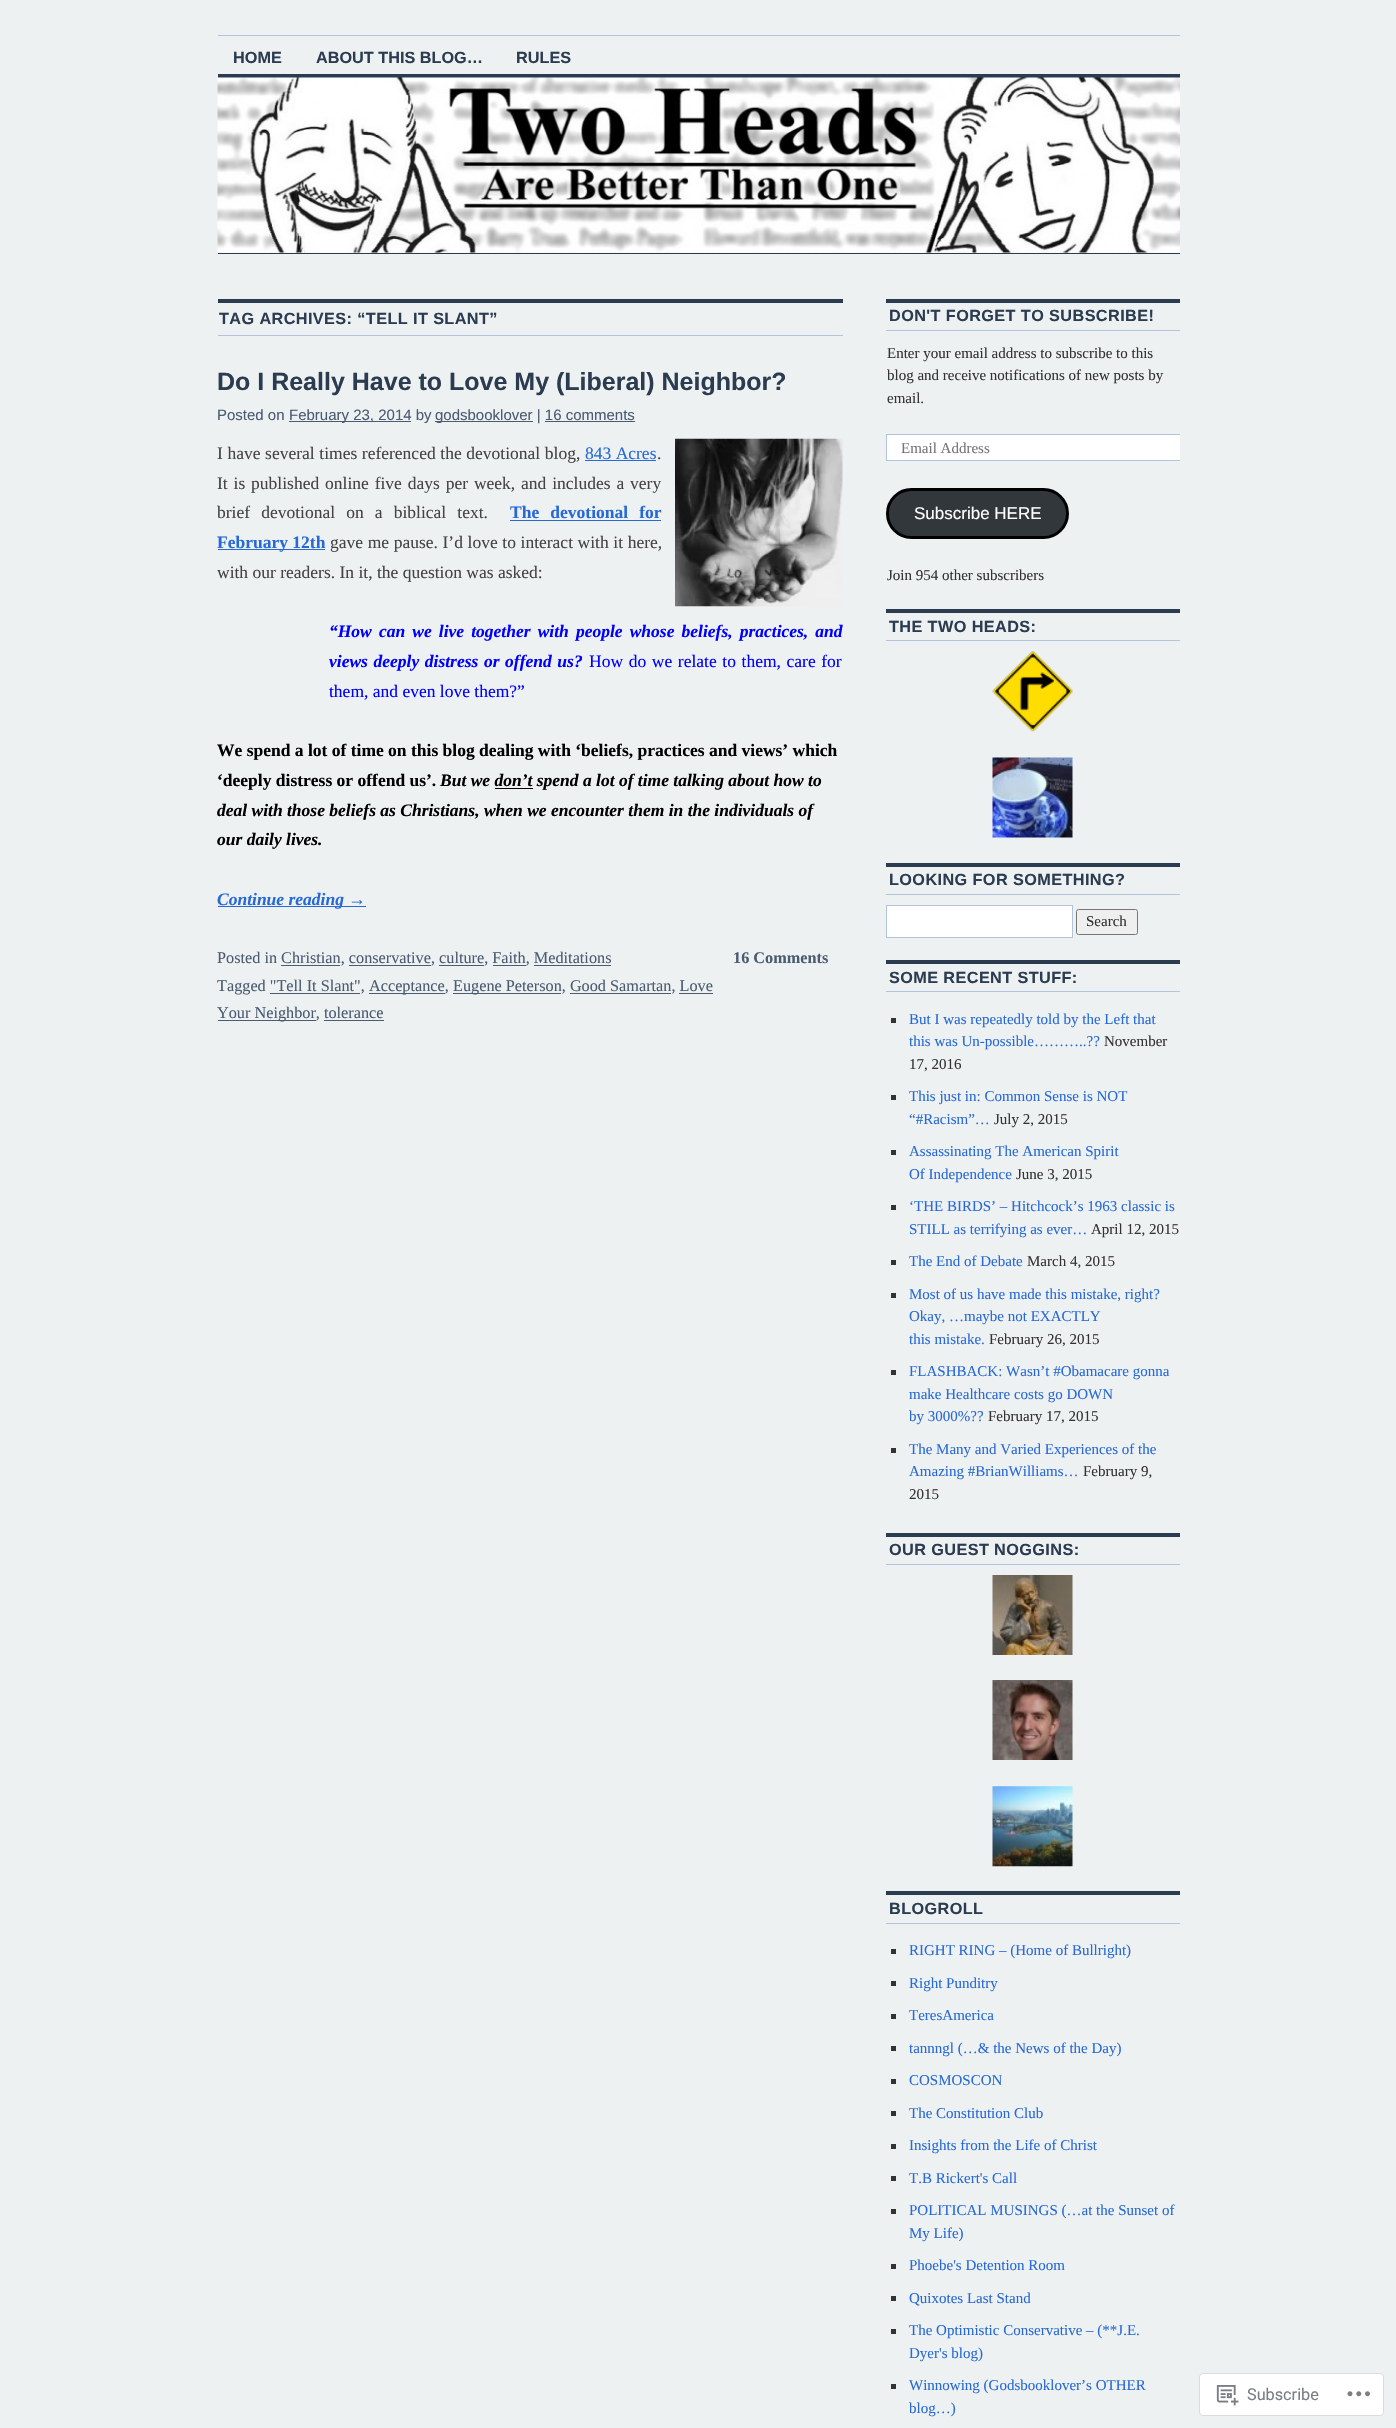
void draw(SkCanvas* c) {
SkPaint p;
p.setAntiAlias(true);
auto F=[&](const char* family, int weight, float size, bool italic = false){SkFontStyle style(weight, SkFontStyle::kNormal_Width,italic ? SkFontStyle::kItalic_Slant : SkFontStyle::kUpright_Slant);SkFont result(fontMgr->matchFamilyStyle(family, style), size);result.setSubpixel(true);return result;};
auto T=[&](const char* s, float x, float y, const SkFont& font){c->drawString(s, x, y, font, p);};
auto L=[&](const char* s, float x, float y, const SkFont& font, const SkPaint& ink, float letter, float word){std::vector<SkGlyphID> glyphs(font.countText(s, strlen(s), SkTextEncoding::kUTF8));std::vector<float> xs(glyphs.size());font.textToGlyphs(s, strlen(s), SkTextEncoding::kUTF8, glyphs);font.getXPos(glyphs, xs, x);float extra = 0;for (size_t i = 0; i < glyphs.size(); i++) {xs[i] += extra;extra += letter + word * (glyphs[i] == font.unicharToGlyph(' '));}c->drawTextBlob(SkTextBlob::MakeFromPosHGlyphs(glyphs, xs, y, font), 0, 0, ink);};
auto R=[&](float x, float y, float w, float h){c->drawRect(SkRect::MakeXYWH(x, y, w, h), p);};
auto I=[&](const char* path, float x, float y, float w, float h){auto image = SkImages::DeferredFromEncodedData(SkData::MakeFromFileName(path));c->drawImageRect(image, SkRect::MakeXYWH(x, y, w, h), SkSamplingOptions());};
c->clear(0xffedf1f2);
p.setColor(0xffb2c3de);
R(218,35,962,1);
auto f1 = F("Liberation Sans",700,16.25);
p.setColor(0xff2c3c50);
T("HOME",233,63,f1);
T("ABOUT THIS BLOG…",316,63,f1);
T("RULES",516,63,f1);
R(218,74,962,4);
I("1.png",217,77,963,176);
R(218,253,962,1);
R(218,299,625,4);
p.setColor(0xffb2c3de);
R(218,335,625,1);
p.setColor(0xff2c3c50);
L("TAG ARCHIVES: “TELL IT SLANT”",219,324,f1,p,.4,0);
auto f2 = F("Liberation Sans",700,25);
T("Do I Really Have to Love My (Liberal) Neighbor?",217,390,f2);
auto f3 = F("Liberation Sans",400,15);
p.setColor(0xff4b5b71);
T("Posted on",217,420,f3);
R(289,421,122,1);
T("February 23, 2014 by",289,420,f3);
R(435,421,98,1);
T("godsbooklover | 16 comments",435,420,f3);
R(545,421,90,1);
auto f4 = F("Liberation Serif",400,17.5);
p.setColor(0xff444444);
L("I have several times referenced the devotional blog,",217,459,f4,p,0,.25);
I("2.png",675,438,168,169);
p.setColor(0xff2869d6);
T("843 Acres",585,459,f4);
R(585,460,71,1);
p.setColor(0xff444444);
T(".",657,459,f4);
L("It is published online five days per week, and includes a very",217,489,f4,p,0,1.5);
L("brief devotional on a biblical text.",217,518,f4,p,0,6.75);
auto f5 = F("Liberation Serif",700,17.5);
p.setColor(0xff2869d6);
L("The devotional for",510,518,f5,p,0,6.75);
R(510,520,151,1);
R(218,549,107,1);
T("February 12th",217,548,f5);
p.setColor(0xff444444);
L("gave me pause. I’d love to interact with it here,",330,548,f4,p,0,.25);
T("with our readers. In it, the question was asked:",217,578,f4);
auto f6 = F("Liberation Serif",700,17.5,true);
p.setColor(0xff0000ff);
L("“How can we live together with people whose beliefs, practices, and",329,637,f6,p,0,2.75);
L("views deeply distress or offend us?",329,667,f6,p,0,1.25);
L("How do we relate to them, care for",589,667,f4,p,0,1.25);
T("them, and even love them?”",329,697,f4);
p.setColor(0xff000000);
T("We spend a lot of time on this blog dealing with ‘beliefs, practices and views’ which",217,756,f5);
T("‘deeply distress or offend us’.",217,786,f5);
T("But we don’t spend a lot of time talking about how to",440,786,f6);
R(495,788,38,1);
T("deal with those beliefs as Christians, when we encounter them in the individuals of",217,816,f6);
T("our daily lives.",217,845,f6);
p.setColor(0xff2869d6);
R(218,906,148,1);
T("Continue reading →",217,905,f6);
auto f7 = F("Liberation Serif",400,16.25);
p.setColor(0xff4b5b71);
T("Posted in Christian, conservative, culture, Faith, Meditations",217,963,f7);
R(281,965,59,1);
R(349,965,82,1);
R(439,965,45,1);
R(493,965,33,1);
R(534,965,77,1);
auto f8 = F("Liberation Serif",700,16.25);
T("16 Comments",733,963,f8);
T("Tagged \"Tell It Slant\",",217,991,f7);
R(369,993,76,1);
T("Acceptance,",369,991,f7);
R(453,993,108,1);
T("Eugene Peterson, Good Samartan, Love",453,991,f7);
R(270,993,90,1);
R(570,993,101,1);
R(218,1020,98,1);
T("Your Neighbor, tolerance",217,1018,f7);
R(679,993,34,1);
R(324,1020,60,1);
p.setColor(0xff2c3c50);
R(886,299,294,4);
p.setColor(0xffb2c3de);
R(886,330,294,1);
p.setColor(0xff2c3c50);
L("DON'T FORGET TO SUBSCRIBE!",889,321,f1,p,.4,0);
auto f9 = F("Liberation Serif",400,15);
p.setColor(0xff333333);
T("Enter your email address to subscribe to this",887,358,f9);
T("blog and receive notifications of new posts by",887,380,f9);
T("email.",887,403,f9);
p.setColor(0xffffffff);
R(887,435,293,25);
c->save();
c->clipRect(SkRect::MakeXYWH(886,299,294,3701));
p.setStroke(true);
p.setStrokeWidth(1);
p.setColor(0xffb2c3de);
c->drawRect(SkRect::MakeXYWH(886.5,434.5,306,26),p);
c->restore();
p.setStroke(false);
p.setColor(0xff757575);
T("Email Address",901,453,f9);
p.setColor(0xff32373c);
c->drawRoundRect(SkRect::MakeXYWH(887.5,489.5,180,48),24,24,p);
p.setStroke(true);
p.setStrokeWidth(3);
p.setColor(0xff000000);
c->drawRoundRect(SkRect::MakeXYWH(887.5,489.5,180,48),24,24,p);
auto f10 = F("Liberation Sans",400,17);
p.setStroke(false);
p.setColor(0xffffffff);
T("Subscribe HERE",914,519,f10);
p.setColor(0xff333333);
T("Join 954 other subscribers",887,580,f9);
p.setColor(0xff2c3c50);
R(886,609,294,4);
p.setColor(0xffb2c3de);
R(886,640,294,1);
p.setColor(0xff2c3c50);
L("THE TWO HEADS:",889,632,f1,p,.4,0);
I("3.png",992,651,81,81);
I("4.png",992,757,81,81);
R(886,863,294,4);
p.setColor(0xffb2c3de);
R(886,894,294,1);
p.setColor(0xff2c3c50);
L("LOOKING FOR SOMETHING?",889,885,f1,p,.4,0);
p.setColor(0xffffffff);
c->drawRect(SkRect::MakeXYWH(886.5,905.5,186,32),p);
p.setStroke(true);
p.setStrokeWidth(1);
p.setColor(0xffb2c3de);
c->drawRect(SkRect::MakeXYWH(886.5,905.5,186,32),p);
p.setStroke(false);
p.setColor(0xffefefef);
c->drawRoundRect(SkRect::MakeXYWH(1076.5,909.5,61,25),2,2,p);
p.setStroke(true);
p.setColor(0xff767676);
c->drawRoundRect(SkRect::MakeXYWH(1076.5,909.5,61,25),2,2,p);
p.setStroke(false);
p.setColor(0xff333333);
T("Search",1086,926,f9);
p.setColor(0xff2c3c50);
R(886,960,294,4);
p.setColor(0xffb2c3de);
R(886,991,294,1);
p.setColor(0xff2c3c50);
L("SOME RECENT STUFF:",889,983,f1,p,.4,0);
p.setColor(0xff333333);
R(891,1018,5,5);
p.setColor(0xff2869d6);
T("But I was repeatedly told by the Left that",909,1024,f9);
T("this was Un-possible………..?\077",909,1046,f9);
p.setColor(0xff333333);
T("November",1104,1046,f9);
T("17, 2016",909,1069,f9);
R(891,1095,5,5);
p.setColor(0xff2869d6);
T("This just in: Common Sense is NOT",909,1101,f9);
T("“#Racism”…",909,1124,f9);
p.setColor(0xff333333);
T("July 2, 2015",994,1124,f9);
R(891,1150,5,5);
p.setColor(0xff2869d6);
T("Assassinating The American Spirit",909,1156,f9);
T("Of Independence",909,1179,f9);
p.setColor(0xff333333);
T("June 3, 2015",1016,1179,f9);
R(891,1205,5,5);
p.setColor(0xff2869d6);
T("‘THE BIRDS’ – Hitchcock’s 1963 classic is",909,1211,f9);
T("STILL as terrifying as ever…",909,1234,f9);
p.setColor(0xff333333);
T("April 12, 2015",1091,1234,f9);
R(891,1260,5,5);
p.setColor(0xff2869d6);
T("The End of Debate",909,1266,f9);
p.setColor(0xff333333);
T("March 4, 2015",1027,1266,f9);
R(891,1293,5,5);
p.setColor(0xff2869d6);
T("Most of us have made this mistake, right?",909,1299,f9);
T("Okay, …maybe not EXACTLY",909,1321,f9);
T("this mistake.",909,1344,f9);
p.setColor(0xff333333);
T("February 26, 2015",989,1344,f9);
R(891,1370,5,5);
p.setColor(0xff2869d6);
T("FLASHBACK: Wasn’t #Obamacare gonna",909,1376,f9);
T("make Healthcare costs go DOWN",909,1399,f9);
T("by 3000%?\077",909,1421,f9);
p.setColor(0xff333333);
T("February 17, 2015",988,1421,f9);
R(891,1448,5,5);
p.setColor(0xff2869d6);
T("The Many and Varied Experiences of the",909,1454,f9);
T("Amazing #BrianWilliams…",909,1476,f9);
p.setColor(0xff333333);
T("February 9,",1083,1476,f9);
T("2015",909,1499,f9);
p.setColor(0xff2c3c50);
R(886,1533,294,4);
p.setColor(0xffb2c3de);
R(886,1564,294,1);
p.setColor(0xff2c3c50);
L("OUR GUEST NOGGINS:",889,1555,f1,p,.4,0);
I("5.png",992,1575,81,80);
I("6.png",992,1680,81,80);
I("7.png",992,1786,81,81);
R(886,1891,294,4);
p.setColor(0xffb2c3de);
R(886,1923,294,1);
p.setColor(0xff2c3c50);
L("BLOGROLL",889,1914,f1,p,.4,0);
p.setColor(0xff333333);
R(891,1949,5,5);
p.setColor(0xff2869d6);
T("RIGHT RING – (Home of Bullright)",909,1955,f9);
p.setColor(0xff333333);
R(891,1981,5,5);
p.setColor(0xff2869d6);
T("Right Punditry",909,1988,f9);
p.setColor(0xff333333);
R(891,2014,5,5);
p.setColor(0xff2869d6);
T("TeresAmerica",909,2020,f9);
p.setColor(0xff333333);
R(891,2046,5,5);
p.setColor(0xff2869d6);
T("tannngl (…& the News of the Day)",909,2053,f9);
p.setColor(0xff333333);
R(891,2079,5,5);
p.setColor(0xff2869d6);
T("COSMOSCON",909,2085,f9);
p.setColor(0xff333333);
R(891,2111,5,5);
p.setColor(0xff2869d6);
T("The Constitution Club",909,2118,f9);
p.setColor(0xff333333);
R(891,2144,5,5);
p.setColor(0xff2869d6);
T("Insights from the Life of Christ",909,2150,f9);
p.setColor(0xff333333);
R(891,2176,5,5);
p.setColor(0xff2869d6);
T("T.B Rickert's Call",909,2183,f9);
p.setColor(0xff333333);
R(891,2209,5,5);
p.setColor(0xff2869d6);
T("POLITICAL MUSINGS (…at the Sunset of",909,2215,f9);
T("My Life)",909,2238,f9);
p.setColor(0xff333333);
R(891,2264,5,5);
p.setColor(0xff2869d6);
T("Phoebe's Detention Room",909,2270,f9);
p.setColor(0xff333333);
R(891,2296,5,5);
p.setColor(0xff2869d6);
T("Quixotes Last Stand",909,2303,f9);
p.setColor(0xff333333);
R(891,2329,5,5);
p.setColor(0xff2869d6);
T("The Optimistic Conservative – (**J.E.",909,2335,f9);
T("Dyer's blog)",909,2358,f9);
p.setColor(0xff333333);
R(891,2384,5,5);
p.setColor(0xff2869d6);
T("Winnowing (Godsbooklover’s OTHER",909,2390,f9);
T("blog…)",909,2413,f9);
p.setColor(0xffffffff);
c->drawRoundRect(SkRect::MakeXYWH(1199.5,2373.5,184,42),3.5,3.5,p);
p.setStroke(true);
p.setColor(0xffdcdcde);
c->drawRoundRect(SkRect::MakeXYWH(1199.5,2373.5,184,42),3.5,3.5,p);
I("8.png",1216,2385,23,21);
auto f11 = F("Roboto",400,16.25);
p.setStroke(false);
p.setColor(0xff7a7e84);
T("Subscribe",1247,2400,f11);
I("9.png",1347,2391,23,6);
}
